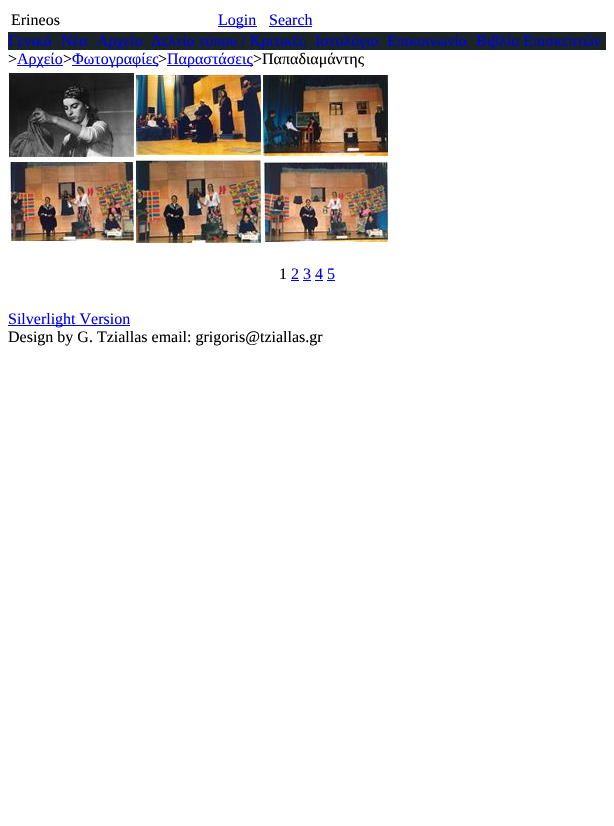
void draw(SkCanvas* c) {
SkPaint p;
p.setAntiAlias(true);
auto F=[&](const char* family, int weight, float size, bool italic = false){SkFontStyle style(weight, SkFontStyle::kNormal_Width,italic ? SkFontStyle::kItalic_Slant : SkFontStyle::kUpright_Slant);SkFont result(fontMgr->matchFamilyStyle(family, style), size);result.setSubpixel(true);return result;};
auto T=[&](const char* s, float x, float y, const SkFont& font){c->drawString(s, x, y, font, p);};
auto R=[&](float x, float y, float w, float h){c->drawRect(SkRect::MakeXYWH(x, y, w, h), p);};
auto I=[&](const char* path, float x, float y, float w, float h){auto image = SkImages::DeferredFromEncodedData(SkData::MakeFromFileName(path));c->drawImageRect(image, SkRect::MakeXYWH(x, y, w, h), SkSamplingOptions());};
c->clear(0xffffffff);
auto f1 = F("Liberation Serif",400,16);
p.setColor(0xff000000);
T("Erineos",11,25,f1);
p.setColor(0xff0000ee);
R(218,26,39,1);
T("Login",218,25,f1);
T("Search",269,25,f1);
R(269,26,43,1);
p.setColor(0xff1b2525);
R(8,32,598,18);
p.setColor(0xff0000ee);
T("Γενικά",8,46,f1);
T("Νέα",61,46,f1);
T("Αρχείο",97,46,f1);
T("Δελτία τύπου / Κριτικές",151,46,f1);
T("Ιστολόγιο",315,46,f1);
T("Επικοινωνία",387,46,f1);
T("Βιβλίο Επισκεπτών",476,46,f1);
p.setColor(0xff000000);
T(">",8,64,f1);
p.setColor(0xff0000ee);
R(17,65,46,1);
T("Αρχείο",17,64,f1);
p.setColor(0xff000000);
T(">",63,64,f1);
p.setColor(0xff0000ee);
R(72,65,86,1);
T("Φωτογραφίες",72,64,f1);
p.setColor(0xff000000);
T(">",158,64,f1);
p.setColor(0xff0000ee);
R(167,65,86,1);
T("Παραστάσεις",167,64,f1);
p.setColor(0xff000000);
T(">Παπαδιαμάντης",253,64,f1);
I("1.png",9,73,125,84);
I("2.png",136,75,125,80);
I("3.png",263,75,125,81);
I("4.png",9,162,125,79);
I("5.png",136,159,125,84);
I("6.png",263,161,125,81);
T("1",279,279,f1);
p.setColor(0xff0000ee);
T("2 3 4 5",291,279,f1);
R(291,280,8,1);
R(303,280,8,1);
R(315,280,8,1);
R(327,280,8,1);
R(8,325,122,1);
T("Silverlight Version",8,324,f1);
p.setColor(0xff000000);
T("Design by G. Tziallas email: grigoris@tziallas.gr",8,342,f1);
}
